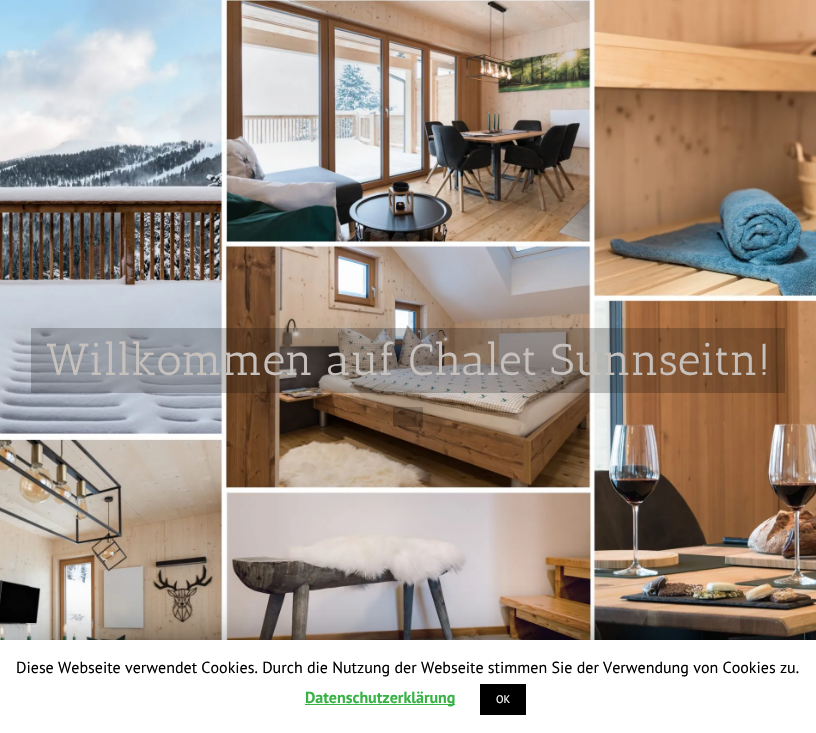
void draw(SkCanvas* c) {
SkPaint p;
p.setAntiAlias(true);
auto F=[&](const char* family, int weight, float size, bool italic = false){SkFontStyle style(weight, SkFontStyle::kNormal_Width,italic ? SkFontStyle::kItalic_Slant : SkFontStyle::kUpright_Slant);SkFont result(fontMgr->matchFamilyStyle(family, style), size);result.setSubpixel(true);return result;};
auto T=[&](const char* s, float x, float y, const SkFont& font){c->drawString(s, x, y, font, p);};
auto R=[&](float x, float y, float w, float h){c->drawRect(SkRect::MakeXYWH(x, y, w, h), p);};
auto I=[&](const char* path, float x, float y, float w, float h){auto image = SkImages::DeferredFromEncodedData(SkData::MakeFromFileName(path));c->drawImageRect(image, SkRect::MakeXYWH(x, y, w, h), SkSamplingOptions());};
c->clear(0xffffffff);
I("1.png",0,0,816,640);
p.setColor(0x38000000);
R(31,328,754,65);
auto f1 = F("Antic Slab",400,44.5);
p.setColor(0xffc7c1bd);
T("Willkommen auf Chalet Sunnseitn!",46,375,f1);
p.setColor(0x38000000);
R(393,407,30,20);
p.setColor(0x80000000);
p.setMaskFilter(SkMaskFilter::MakeBlur(kNormal_SkBlurStyle, 25));
c->drawRect(SkRect::MakeXYWH(0,645,816,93),p);
p.setMaskFilter(nullptr);
p.setColor(0xffffffff);
R(0,640,816,93);
auto f2 = F("PT Sans",400,16);
p.setColor(0xff000000);
T("Diese Webseite verwendet Cookies. Durch die Nutzung der Webseite stimmen Sie der Verwendung von Cookies zu.",16,673,f2);
p.setColor(0xff37b245);
R(305,704,150,1);
auto f3 = F("PT Sans",700,16);
T("Datenschutzerklärung",305,703,f3);
p.setColor(0xff000000);
R(480,684,46,31);
auto f4 = F("PT Sans",400,11);
p.setColor(0xffffffff);
T("OK",496,703,f4);
}
